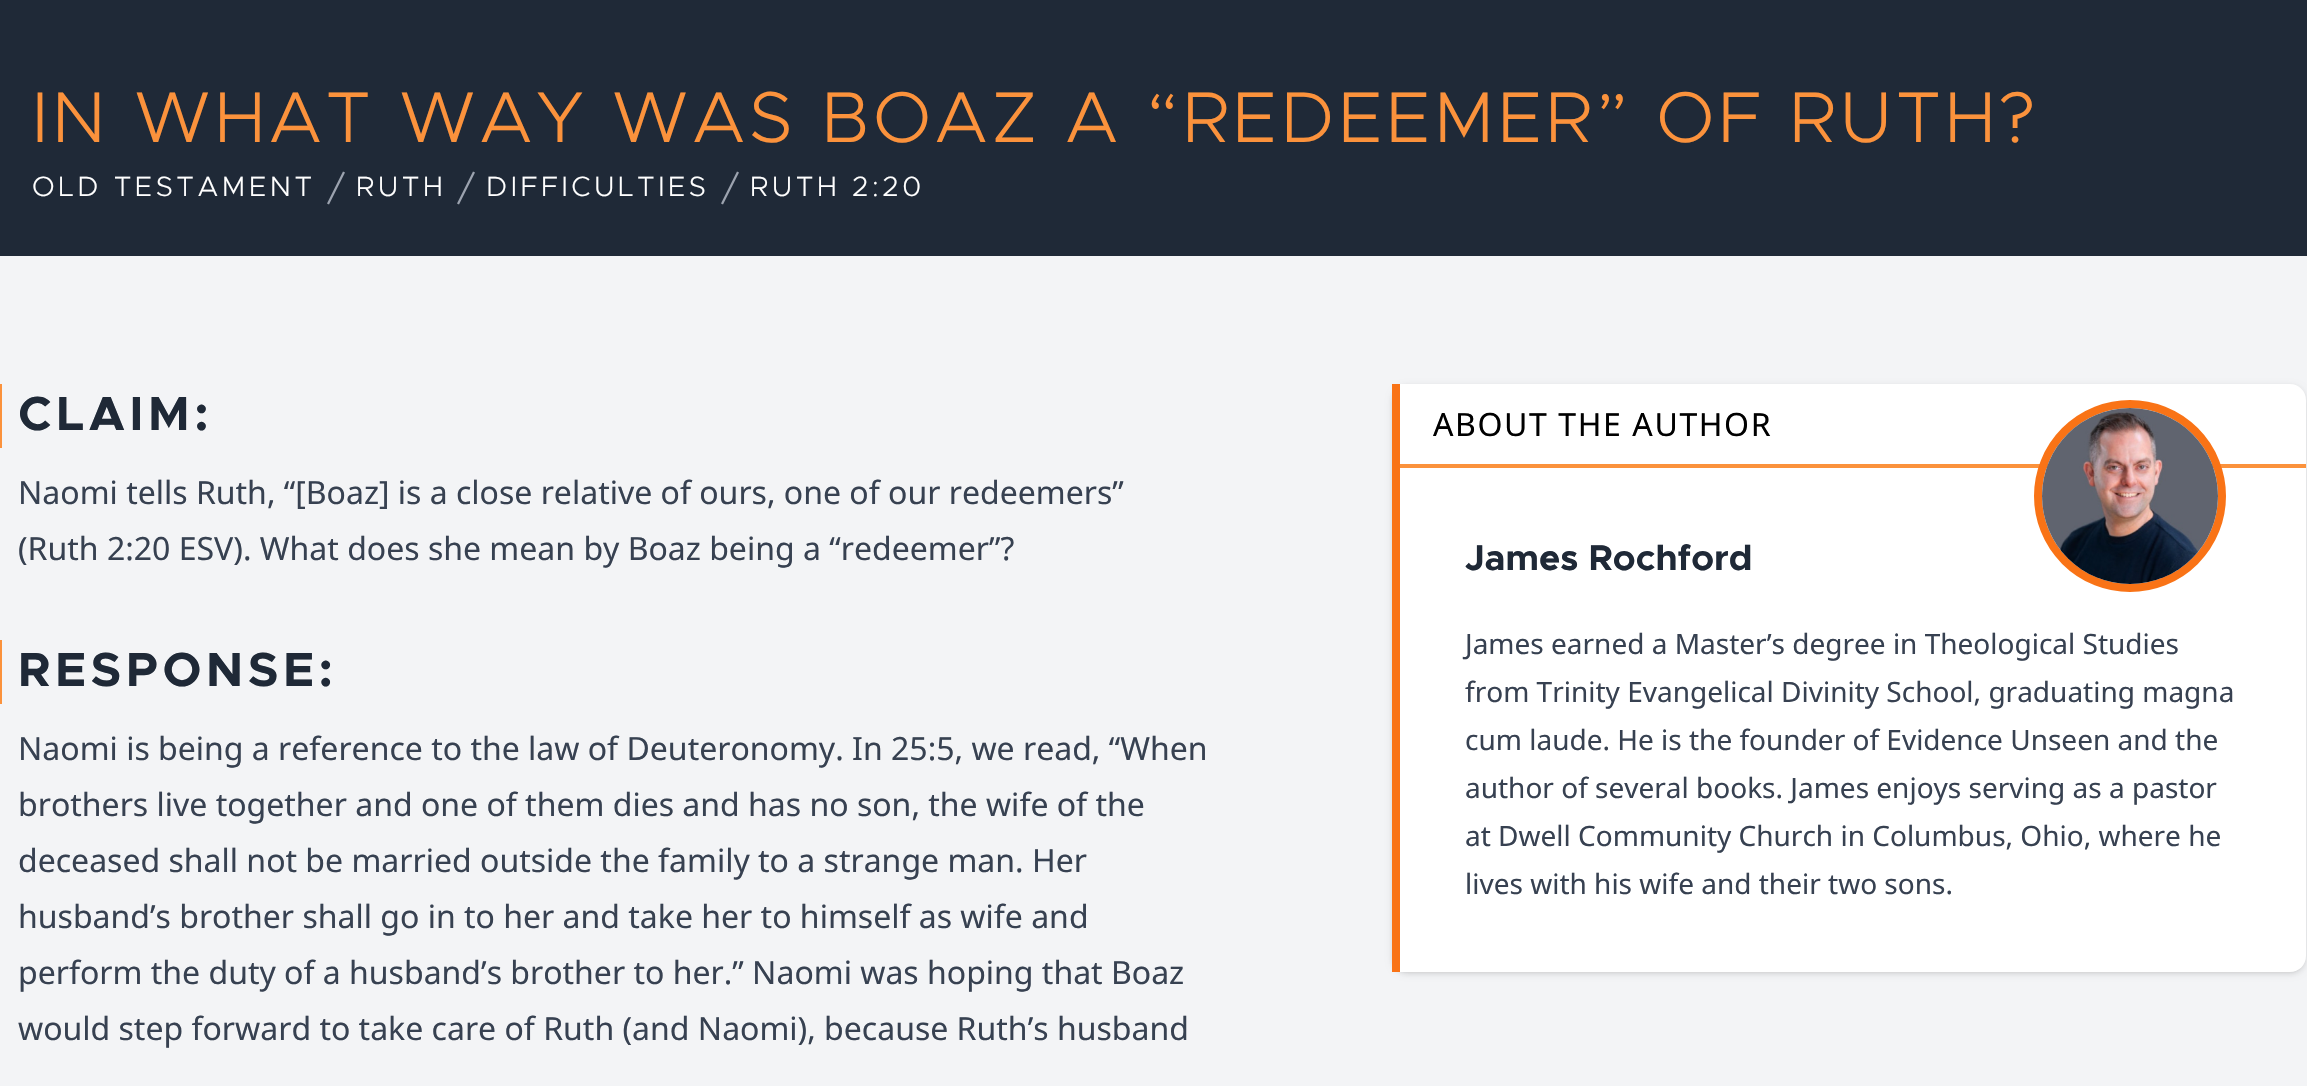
void draw(SkCanvas* c) {
SkPaint p;
p.setAntiAlias(true);
auto F=[&](const char* family, int weight, float size, bool italic = false){SkFontStyle style(weight, SkFontStyle::kNormal_Width,italic ? SkFontStyle::kItalic_Slant : SkFontStyle::kUpright_Slant);SkFont result(fontMgr->matchFamilyStyle(family, style), size);result.setSubpixel(true);return result;};
auto T=[&](const char* s, float x, float y, const SkFont& font){c->drawString(s, x, y, font, p);};
auto L=[&](const char* s, float x, float y, const SkFont& font, const SkPaint& ink, float letter, float word){std::vector<SkGlyphID> glyphs(font.countText(s, strlen(s), SkTextEncoding::kUTF8));std::vector<float> xs(glyphs.size());font.textToGlyphs(s, strlen(s), SkTextEncoding::kUTF8, glyphs);font.getXPos(glyphs, xs, x);float extra = 0;for (size_t i = 0; i < glyphs.size(); i++) {xs[i] += extra;extra += letter + word * (glyphs[i] == font.unicharToGlyph(' '));}c->drawTextBlob(SkTextBlob::MakeFromPosHGlyphs(glyphs, xs, y, font), 0, 0, ink);};
auto R=[&](float x, float y, float w, float h){c->drawRect(SkRect::MakeXYWH(x, y, w, h), p);};
auto I=[&](const char* path, float x, float y, float w, float h){auto image = SkImages::DeferredFromEncodedData(SkData::MakeFromFileName(path));c->drawImageRect(image, SkRect::MakeXYWH(x, y, w, h), SkSamplingOptions());};
auto P=[&](const char* data, bool evenOdd = false){SkPath result = *SkParsePath::FromSVGString(data);if (evenOdd) result.setFillType(SkPathFillType::kEvenOdd);return result;};
c->clear(0xff1f2937);
p.setColor(0xfff3f4f6);
R(0,256,2307,830);
auto f1 = F("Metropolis",300,72);
p.setColor(0xfffb923c);
L("IN WHAT WAY WAS BOAZ A “REDEEMER” OF RUTH?",32,142,f1,p,3.6,0);
auto f2 = F("Metropolis",300,28);
p.setColor(0xffffffff);
L("OLD TESTAMENT",32,196,f2,p,3.6,0);
p.setColor(0xff9ca3af);
c->drawPath(P("M327 203.5l16-32l2 1l-16 32z"),p);
p.setColor(0xffffffff);
L("RUTH",356,196,f2,p,3.6,0);
p.setColor(0xff9ca3af);
c->drawPath(P("M457 203.5l16-32l2 1l-16 32z"),p);
p.setColor(0xffffffff);
L("DIFFICULTIES",486,196,f2,p,3.6,0);
p.setColor(0xff9ca3af);
c->drawPath(P("M721 203.5l16-32l2 1l-16 32z"),p);
p.setColor(0xffffffff);
L("RUTH 2:20",750,196,f2,p,3.6,0);
p.setColor(0xfffb923c);
R(0,384,2,64);
auto f3 = F("Metropolis",700,48);
p.setColor(0xff1f2937);
L("CLAIM:",18,430,f3,p,4.75,0);
auto f4 = F("Noto Sans",400,32);
p.setColor(0xff374151);
T("Naomi tells Ruth, “[Boaz] is a close relative of ours, one of our redeemers”",18,504,f4);
T("(Ruth 2:20 ESV). What does she mean by Boaz being a “redeemer”?",18,560,f4);
p.setColor(0xfffb923c);
R(0,640,2,64);
p.setColor(0xff1f2937);
L("RESPONSE:",18,686,f3,p,4.75,0);
p.setColor(0xff374151);
T("Naomi is being a reference to the law of Deuteronomy. In 25:5, we read, “When",18,760,f4);
T("brothers live together and one of them dies and has no son, the wife of the",18,816,f4);
T("deceased shall not be married outside the family to a strange man. Her",18,872,f4);
T("husband’s brother shall go in to her and take her to himself as wife and",18,928,f4);
T("perform the duty of a husband’s brother to her.” Naomi was hoping that Boaz",18,984,f4);
T("would step forward to take care of Ruth (and Naomi), because Ruth’s husband",18,1040,f4);
p.setColor(0x1a000000);
p.setMaskFilter(SkMaskFilter::MakeBlur(kNormal_SkBlurStyle, 2));
c->drawRoundRect(SkRect::MakeXYWH(1394,388,910,584),14,14,p);
p.setMaskFilter(nullptr);
p.setMaskFilter(SkMaskFilter::MakeBlur(kNormal_SkBlurStyle, 3));
c->drawRoundRect(SkRect::MakeXYWH(1392,386,914,588),16,16,p);
p.setMaskFilter(nullptr);
p.setColor(0xffffffff);
c->drawPath(P("M1400 384h890c9 0 16 7 16 16v556c0 9-7 16-16 16h-890z"),p);
p.setColor(0xfff97316);
R(1392,384,8,588);
p.setColor(0xfffb923c);
R(1400,464,906,4);
p.setColor(0xff000000);
L("ABOUT THE AUTHOR",1433,436,f4,p,1.6,0);
p.setStroke(true);
p.setStrokeWidth(8);
p.setColor(0xfff97316);
c->drawCircle(2130,496,92,p);
I("1.png",2042,408,176,176);
auto f5 = F("Metropolis",700,36);
p.setStroke(false);
p.setColor(0xff1f2937);
T("James Rochford",1465,570,f5);
auto f6 = F("Noto Sans",400,28);
p.setColor(0xff374151);
T("James earned a Master’s degree in Theological Studies",1465,654,f6);
T("from Trinity Evangelical Divinity School, graduating magna",1465,702,f6);
T("cum laude. He is the founder of Evidence Unseen and the",1465,750,f6);
T("author of several books. James enjoys serving as a pastor",1465,798,f6);
T("at Dwell Community Church in Columbus, Ohio, where he",1465,846,f6);
T("lives with his wife and their two sons.",1465,894,f6);
}
